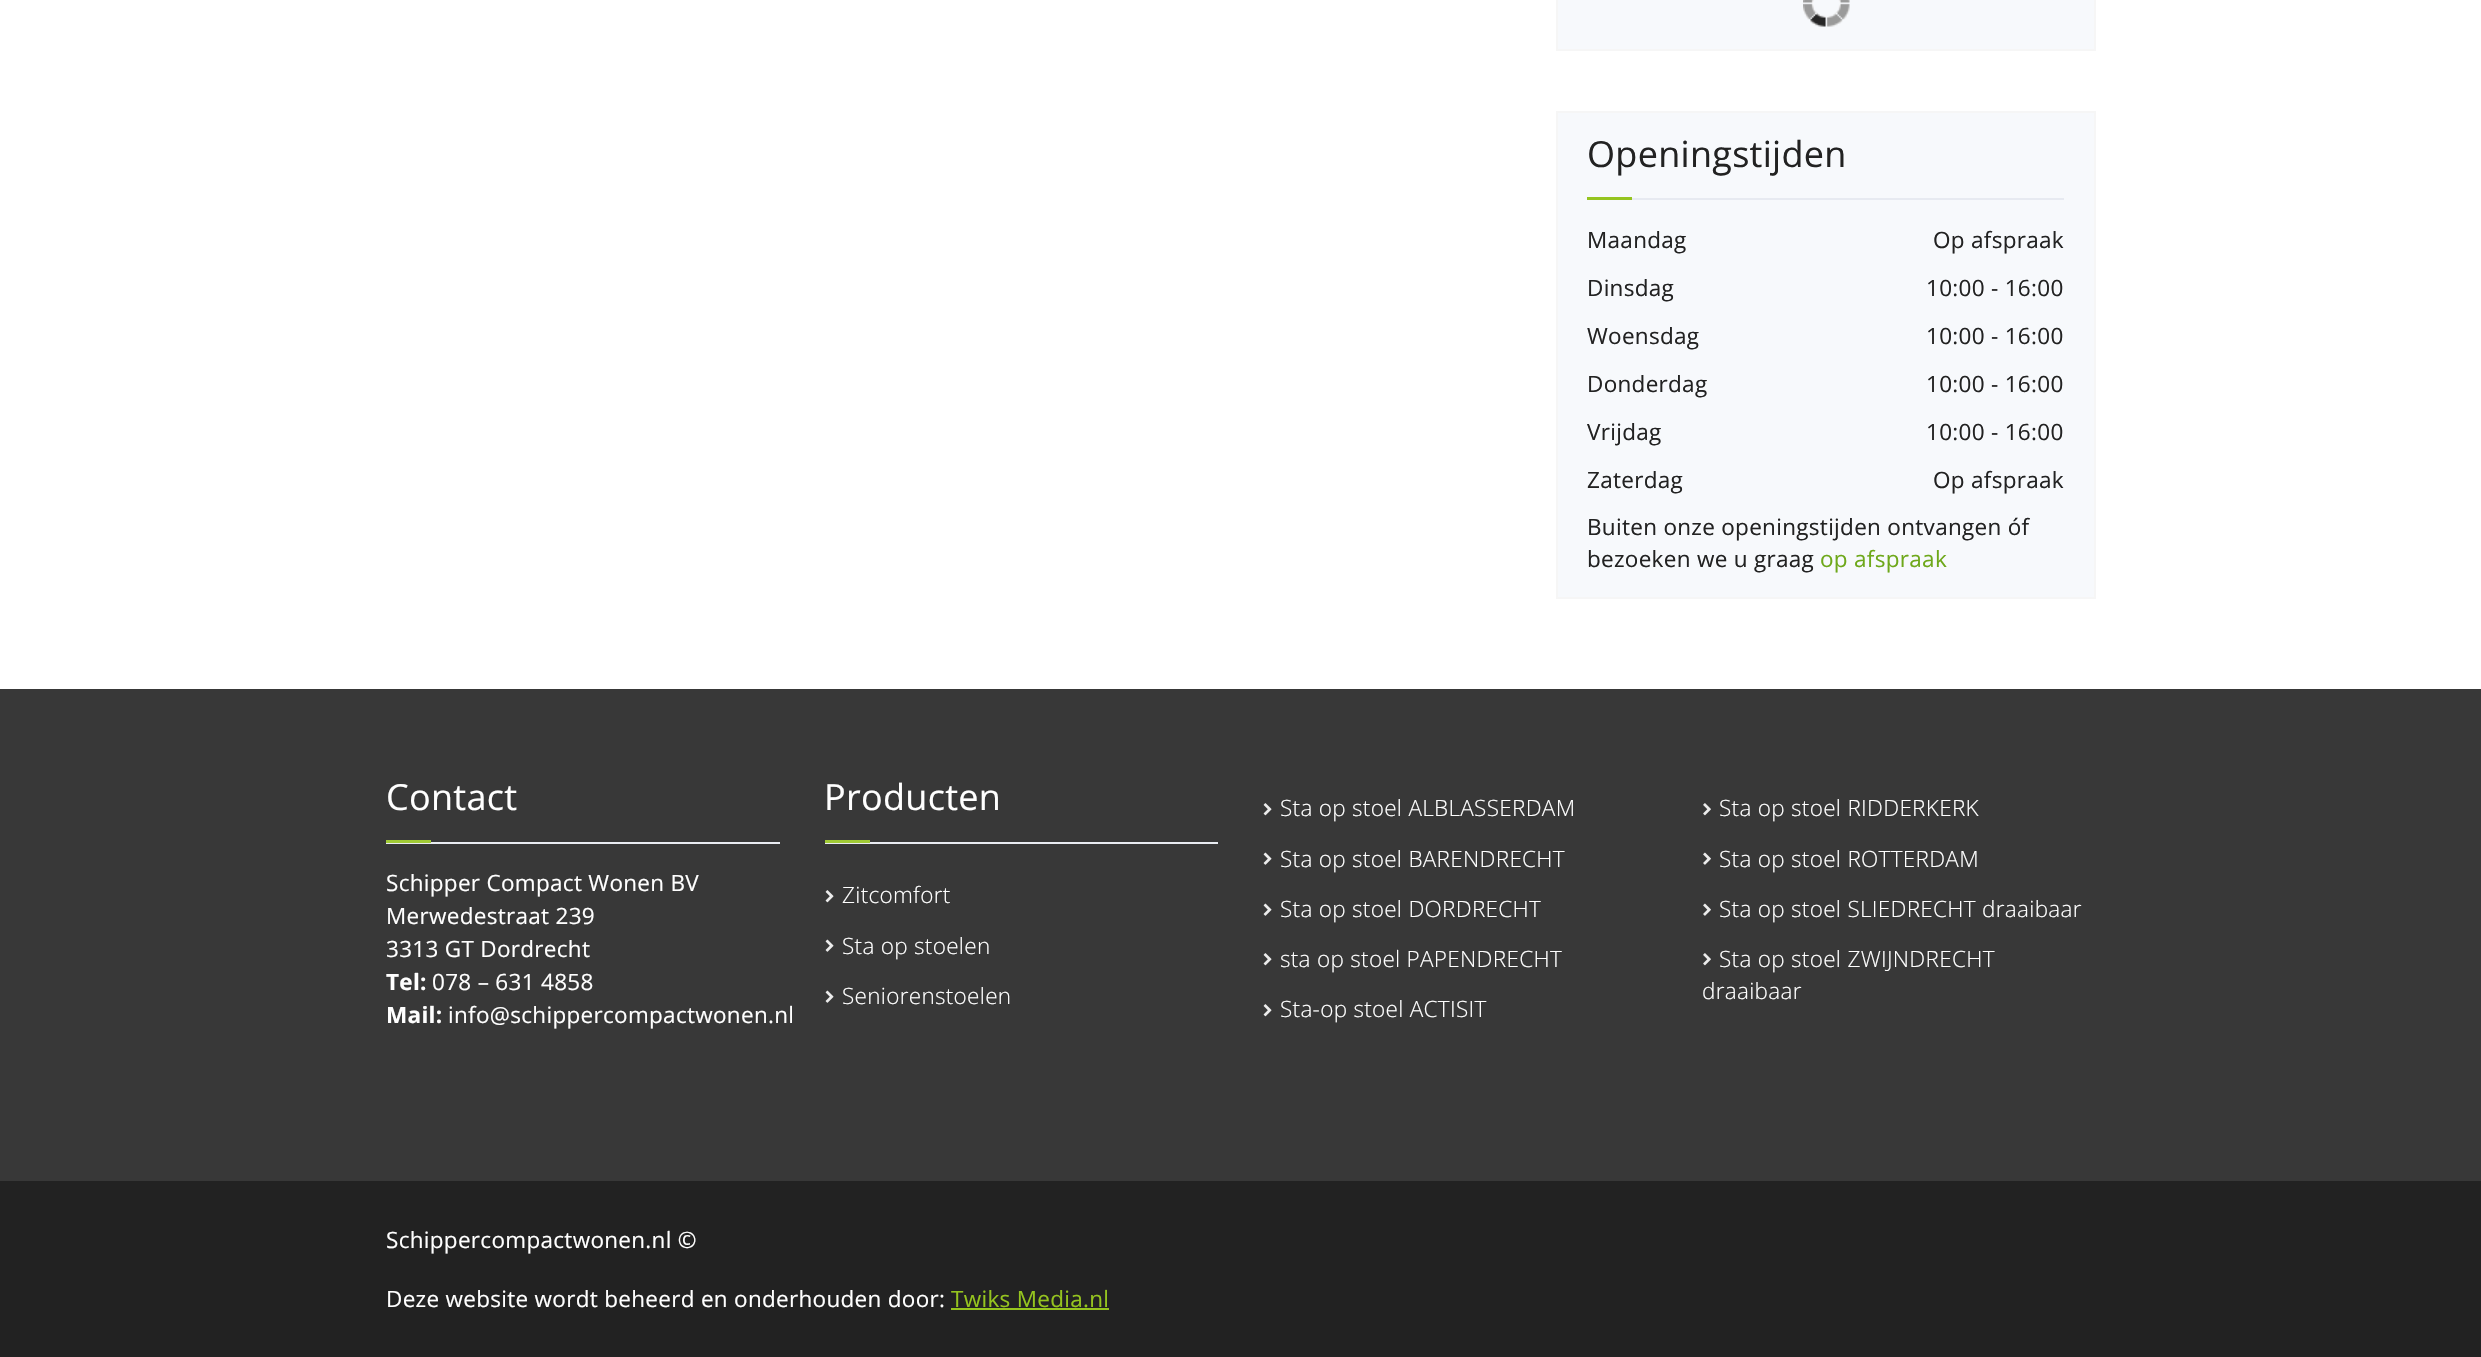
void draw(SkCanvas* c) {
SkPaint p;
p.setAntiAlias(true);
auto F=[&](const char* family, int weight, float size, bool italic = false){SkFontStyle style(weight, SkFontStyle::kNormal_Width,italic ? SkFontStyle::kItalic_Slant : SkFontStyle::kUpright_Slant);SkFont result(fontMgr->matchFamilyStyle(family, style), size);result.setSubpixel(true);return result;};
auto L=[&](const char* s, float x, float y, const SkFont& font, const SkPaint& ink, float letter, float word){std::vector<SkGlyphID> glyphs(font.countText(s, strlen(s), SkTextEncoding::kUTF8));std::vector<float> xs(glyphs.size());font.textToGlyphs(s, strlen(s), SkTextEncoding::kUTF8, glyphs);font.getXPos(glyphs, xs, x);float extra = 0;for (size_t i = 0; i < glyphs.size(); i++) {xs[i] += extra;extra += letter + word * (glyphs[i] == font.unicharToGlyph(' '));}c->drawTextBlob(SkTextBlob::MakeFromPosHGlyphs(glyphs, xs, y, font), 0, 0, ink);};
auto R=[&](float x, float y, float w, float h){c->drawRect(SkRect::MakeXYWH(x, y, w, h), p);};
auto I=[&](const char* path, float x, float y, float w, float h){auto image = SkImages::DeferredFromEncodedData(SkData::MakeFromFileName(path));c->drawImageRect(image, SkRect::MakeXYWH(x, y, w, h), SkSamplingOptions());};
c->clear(0xffffffff);
p.setColor(0xfff7f9fc);
c->drawRect(SkRect::MakeXYWH(1557,-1,538,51),p);
p.setStroke(true);
p.setStrokeWidth(2);
p.setColor(0xfff6f6f6);
c->drawRect(SkRect::MakeXYWH(1557,-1,538,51),p);
I("1.png",1803,0,47,27);
p.setStroke(false);
p.setColor(0xfff7f9fc);
c->drawRect(SkRect::MakeXYWH(1557,112,538,486),p);
p.setStroke(true);
p.setColor(0xfff6f6f6);
c->drawRect(SkRect::MakeXYWH(1557,112,538,486),p);
p.setStroke(false);
p.setColor(0xffe7eaf1);
R(1632,198,432,2);
auto f1 = F("Open Sans",400,36);
p.setColor(0xff222222);
L("Openingstijden",1587,167,f1,p,.3,0);
p.setColor(0xff95c41f);
R(1587,197,45,3);
auto f2 = F("Open Sans",400,22.5);
p.setColor(0xff222222);
L("Maandag",1587,248,f2,p,.3,0);
L("Op afspraak",1933,248,f2,p,.3,0);
L("Dinsdag",1587,296,f2,p,.3,0);
L("10:00 - 16:00",1926,296,f2,p,.3,0);
L("Woensdag",1587,344,f2,p,.3,0);
L("10:00 - 16:00",1926,344,f2,p,.3,0);
L("Donderdag",1587,392,f2,p,.3,0);
L("10:00 - 16:00",1926,392,f2,p,.3,0);
L("Vrijdag",1587,440,f2,p,.3,0);
L("10:00 - 16:00",1926,440,f2,p,.3,0);
L("Zaterdag",1587,488,f2,p,.3,0);
L("Op afspraak",1933,488,f2,p,.3,0);
L("Buiten onze openingstijden ontvangen óf",1587,535,f2,p,.3,0);
L("bezoeken we u graag",1587,567,f2,p,.3,0);
p.setColor(0xff6ea81a);
L("op afspraak",1820,567,f2,p,.3,0);
p.setColor(0xff383838);
R(0,689,2481,492);
p.setColor(0xffe9ecf2);
R(386,842,394,2);
p.setColor(0xffffffff);
L("Contact",386,810,f1,p,.3,0);
p.setColor(0xffa0ca35);
R(386,840,45,3);
p.setColor(0xffffffff);
L("Schipper Compact Wonen BV",386,891,f2,p,.3,0);
L("Merwedestraat 239",386,924,f2,p,.3,0);
L("3313 GT Dordrecht",386,957,f2,p,.3,0);
auto f3 = F("Open Sans",700,22.5);
L("Tel:",386,990,f3,p,.3,0);
L("078 – 631 4858",432,990,f2,p,.3,0);
L("Mail:",386,1023,f3,p,.3,0);
L("info@schippercompactwonen.nl",448,1023,f2,p,.3,0);
p.setColor(0xffe9ecf2);
R(825,842,393,2);
p.setColor(0xffffffff);
L("Producten",824,810,f1,p,.3,0);
p.setColor(0xffa0ca35);
R(825,840,45,3);
I("2.png",825,890,9,13);
auto f4 = F("Open Sans",300,22.5);
p.setColor(0xffffffff);
L("Zitcomfort",842,903,f4,p,.3,0);
I("3.png",825,939,9,13);
L("Sta op stoelen",842,954,f4,p,.3,0);
I("3.png",825,990,9,13);
L("Seniorenstoelen",842,1004,f4,p,.3,0);
I("2.png",1263,803,9,13);
L("Sta op stoel ALBLASSERDAM",1280,816,f4,p,.3,0);
I("3.png",1263,852,9,13);
L("Sta op stoel BARENDRECHT",1280,867,f4,p,.3,0);
I("3.png",1263,903,9,13);
L("Sta op stoel DORDRECHT",1280,917,f4,p,.3,0);
I("2.png",1263,953,9,13);
L("sta op stoel PAPENDRECHT",1280,967,f4,p,.3,0);
I("2.png",1263,1004,9,13);
L("Sta-op stoel ACTISIT",1280,1017,f4,p,.3,0);
I("4.png",1703,803,8,13);
L("Sta op stoel RIDDERKERK",1719,816,f4,p,.3,0);
I("5.png",1703,852,8,13);
L("Sta op stoel ROTTERDAM",1719,867,f4,p,.3,0);
I("5.png",1703,903,8,13);
L("Sta op stoel SLIEDRECHT draaibaar",1719,917,f4,p,.3,0);
I("4.png",1703,953,8,13);
L("Sta op stoel ZWIJNDRECHT",1719,967,f4,p,.3,0);
L("draaibaar",1702,999,f4,p,.3,0);
p.setColor(0xff222222);
R(0,1181,2481,176);
p.setColor(0xffffffff);
L("Schippercompactwonen.nl ©",386,1248,f2,p,.3,0);
L("Deze website wordt beheerd en onderhouden door:",386,1307,f2,p,.3,0);
p.setColor(0xff95c41f);
L("Twiks Media.nl",951,1307,f2,p,.3,0);
R(951,1308,158,2);
}
